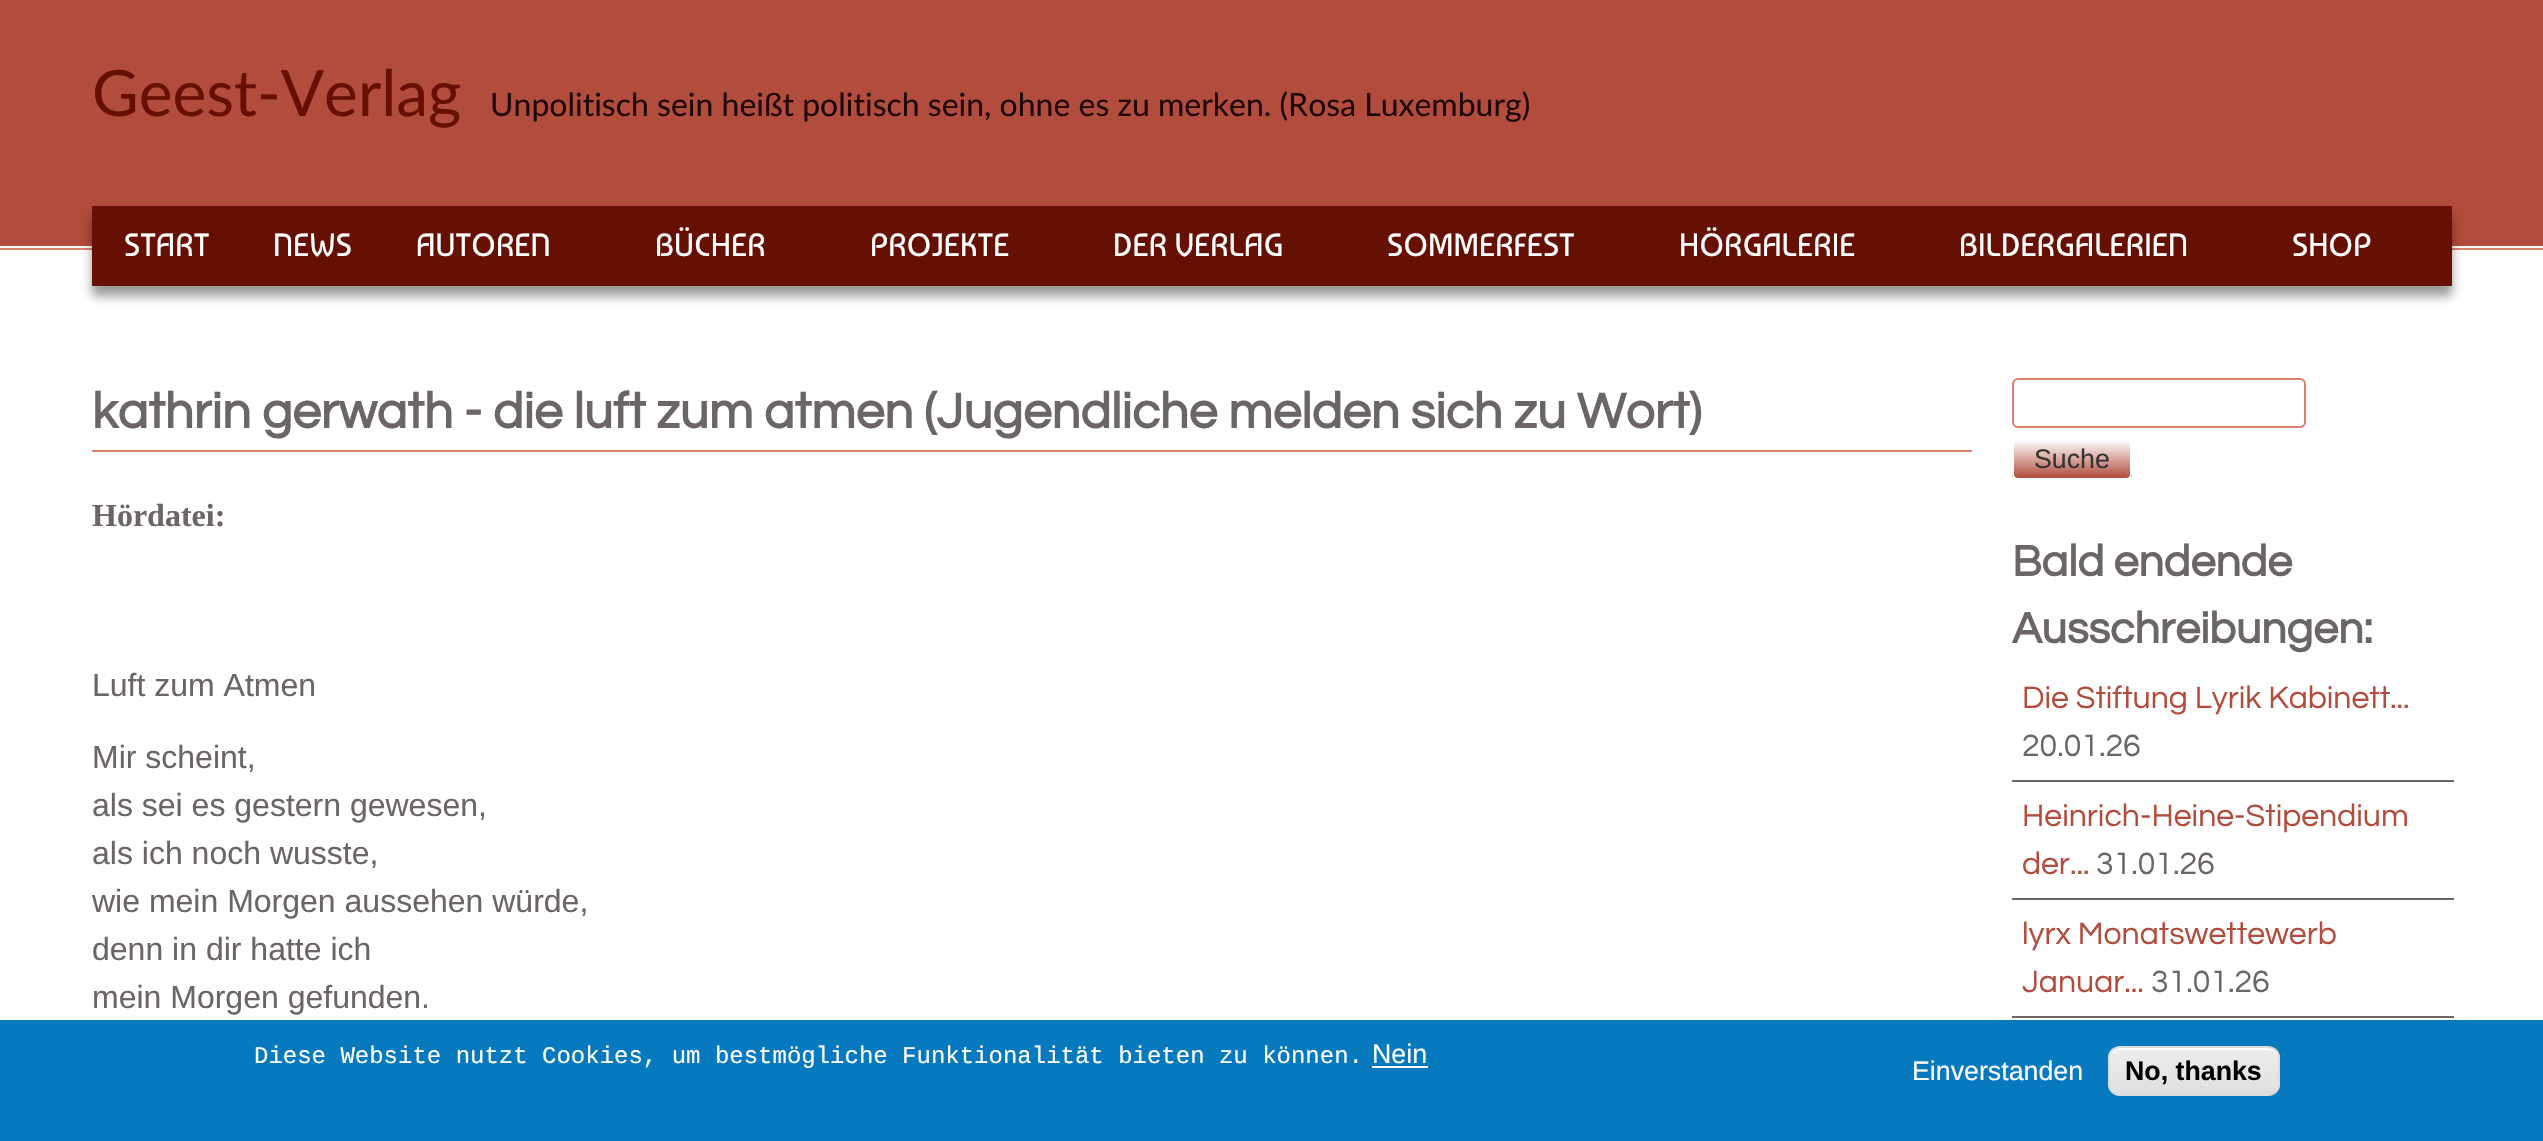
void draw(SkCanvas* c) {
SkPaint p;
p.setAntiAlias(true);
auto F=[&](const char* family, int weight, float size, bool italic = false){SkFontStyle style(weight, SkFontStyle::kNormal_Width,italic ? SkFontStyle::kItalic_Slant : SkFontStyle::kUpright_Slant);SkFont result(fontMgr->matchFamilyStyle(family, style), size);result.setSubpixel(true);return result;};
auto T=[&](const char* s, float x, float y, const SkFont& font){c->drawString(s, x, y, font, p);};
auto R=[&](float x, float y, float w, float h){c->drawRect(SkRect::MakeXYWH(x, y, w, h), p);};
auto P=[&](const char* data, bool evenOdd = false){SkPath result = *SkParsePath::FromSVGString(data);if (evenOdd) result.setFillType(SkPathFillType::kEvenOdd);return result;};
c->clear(0xffffffff);
p.setColor(0xffb24c3c);
R(0,0,2543,246);
auto f1 = F("Lato",400,64);
p.setColor(0xff661003);
T("Geest-Verlag",92,116,f1);
auto f2 = F("Lato",400,32);
p.setColor(0xff1e0606);
T("Unpolitisch sein heißt politisch sein, ohne es zu merken. (Rosa Luxemburg)",490,116,f2);
p.setColor(0xffde7e6f);
R(0,248,2543,2);
p.setColor(0x66000000);
p.setMaskFilter(SkMaskFilter::MakeBlur(kNormal_SkBlurStyle, 5));
c->drawRect(SkRect::MakeXYWH(92,216,2360,80),p);
p.setMaskFilter(nullptr);
p.setColor(0xff661003);
R(92,206,2360,80);
auto f3 = F("Baumans",400,32);
p.setColor(0xffffffff);
T("START",124,256,f3);
T("NEWS",273,256,f3);
T("AUTOREN",416,256,f3);
T("BÜCHER",655,256,f3);
T("PROJEKTE",870,256,f3);
T("DER VERLAG",1113,256,f3);
T("SOMMERFEST",1387,256,f3);
T("HÖRGALERIE",1679,256,f3);
T("BILDERGALERIEN",1959,256,f3);
T("SHOP",2292,256,f3);
p.setColor(0xffde7e6f);
R(92,450,1880,2);
auto f4 = F("Questrial",700,51.2);
p.setColor(0xff6b6565);
T("kathrin gerwath - die luft zum atmen (Jugendliche melden sich zu Wort)",92,428,f4);
auto f5 = F("Liberation Serif",700,32);
T("Hördatei:",92,526,f5);
auto f6 = F("Liberation Sans",400,32);
T("Luft zum Atmen",92,696,f6);
T("Mir scheint,",92,768,f6);
T("als sei es gestern gewesen,",92,816,f6);
T("als ich noch wusste,",92,864,f6);
T("wie mein Morgen aussehen würde,",92,912,f6);
T("denn in dir hatte ich",92,960,f6);
T("mein Morgen gefunden.",92,1008,f6);
p.setStroke(true);
p.setStrokeWidth(2);
p.setColor(0xffde7e6f);
c->drawRoundRect(SkRect::MakeXYWH(2013,379,292,48),5,5,p);
c->save();
c->clipPath(P("M2018 438h108c3.5 0 6 2.5 6 6v30c0 3.5-2.5 6-6 6h-108c-3.5 0-6-2.5-6-6v-30c0-3.5 2.5-6 6-6z"),true);
p.setStroke(false);
{
const SkColor colors[] = {0xffffffff,0xffb24c3c};
const float stops[] = {0,1};
const SkPoint ends[] = {{2072,440}, {2072,478}};
p.setShader(SkGradientShader::MakeLinear(ends, colors, stops, 2, SkTileMode::kClamp));
p.setAlpha(255);
}
R(2012,440,120,38);
c->restore();
p.setStroke(true);
p.setShader(nullptr);
p.setColor(0xffffffff);
c->drawRoundRect(SkRect::MakeXYWH(2013,439,118,40),5,5,p);
auto f7 = F("Liberation Sans",400,26.75);
p.setStroke(false);
p.setColor(0xff353333);
T("Suche",2034,468,f7);
auto f8 = F("Questrial",700,44.75);
p.setColor(0xff6b6565);
T("Bald endende",2012,576,f8);
T("Ausschreibungen:",2012,643,f8);
R(2012,780,442,2);
auto f9 = F("Questrial",400,32);
p.setColor(0xffb24c3c);
T("Die Stiftung Lyrik Kabinett...",2022,708,f9);
p.setColor(0xff6b6565);
T("20.01.26",2022,756,f9);
R(2012,898,442,2);
p.setColor(0xffb24c3c);
T("Heinrich-Heine-Stipendium",2022,826,f9);
T("der...",2022,874,f9);
p.setColor(0xff6b6565);
T("31.01.26",2096,874,f9);
R(2012,1016,442,2);
p.setColor(0xffb24c3c);
T("lyrx Monatswettewerb",2022,944,f9);
T("Januar...",2022,992,f9);
p.setColor(0xff6b6565);
T("31.01.26",2151,992,f9);
p.setColor(0xff0779bf);
R(0,1020,2543,121);
auto f10 = F("Liberation Mono",400,24);
p.setColor(0xffffffff);
T("Diese Website nutzt Cookies, um bestmögliche Funktionalität bieten zu können.",254,1063,f10);
T("Nein",1372,1063,f7);
R(1372,1066,56,2);
T("Einverstanden",1912,1080,f7);
c->save();
c->clipPath(P("M2120 1046h148c6.5 0 12 5.5 12 12v26c0 6.5-5.5 12-12 12h-148c-6.5 0-12-5.5-12-12v-26c0-6.5 5.5-12 12-12z"),true);
{
const SkColor colors[] = {0xffededed,0xffdfdfdf};
const float stops[] = {.05,1};
const SkPoint ends[] = {{2194,1048}, {2194,1094}};
p.setShader(SkGradientShader::MakeLinear(ends, colors, stops, 2, SkTileMode::kClamp));
p.setAlpha(255);
}
R(2108,1048,172,46);
c->restore();
p.setShader(nullptr);
p.setColor(0xffffffff);
c->drawPath(P("M2120 1050h148c6 0 10 4 10 10v-2c0-6-4-10-10-10h-148c-6 0-10 4-10 10v2c0-6 4-10 10-10z"),p);
p.setStroke(true);
p.setColor(0xffdcdcdc);
c->drawRoundRect(SkRect::MakeXYWH(2109,1047,170,48),11,11,p);
auto f11 = F("Liberation Sans",700,26.75);
p.setStroke(false);
p.setColor(0xff000000);
T("No, thanks",2125,1080,f11);
}
